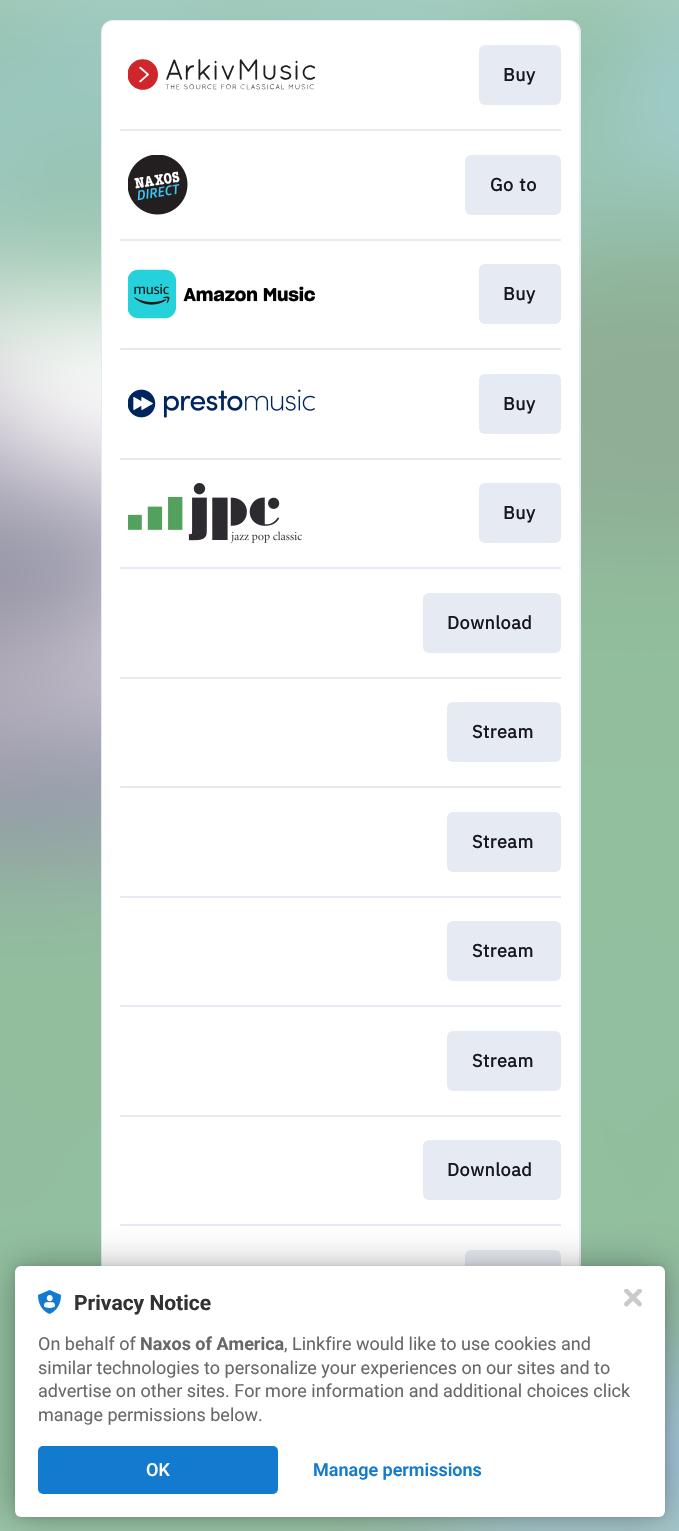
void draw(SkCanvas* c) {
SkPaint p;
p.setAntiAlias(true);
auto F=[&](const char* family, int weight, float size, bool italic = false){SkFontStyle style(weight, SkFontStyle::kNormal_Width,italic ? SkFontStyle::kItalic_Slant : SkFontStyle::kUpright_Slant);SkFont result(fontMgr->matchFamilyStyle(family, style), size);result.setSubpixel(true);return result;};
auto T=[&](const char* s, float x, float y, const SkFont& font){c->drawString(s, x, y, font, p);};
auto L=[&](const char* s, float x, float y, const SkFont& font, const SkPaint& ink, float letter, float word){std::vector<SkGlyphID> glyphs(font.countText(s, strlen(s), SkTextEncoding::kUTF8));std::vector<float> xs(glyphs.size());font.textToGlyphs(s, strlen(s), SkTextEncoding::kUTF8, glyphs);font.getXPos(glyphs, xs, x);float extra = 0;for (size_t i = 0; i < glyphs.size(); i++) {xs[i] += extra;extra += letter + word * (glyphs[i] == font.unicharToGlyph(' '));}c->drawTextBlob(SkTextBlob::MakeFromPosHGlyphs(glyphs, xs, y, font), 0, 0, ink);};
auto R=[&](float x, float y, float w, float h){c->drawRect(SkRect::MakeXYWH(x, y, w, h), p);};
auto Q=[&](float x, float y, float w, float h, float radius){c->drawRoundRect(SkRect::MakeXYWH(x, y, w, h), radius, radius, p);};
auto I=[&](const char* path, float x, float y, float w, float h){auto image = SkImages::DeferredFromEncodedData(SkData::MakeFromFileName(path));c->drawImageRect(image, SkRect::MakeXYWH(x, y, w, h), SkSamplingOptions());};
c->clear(0xffffffff);
I("1.png",0,0,679,1531);
p.setStroke(true);
p.setStrokeWidth(2);
p.setColor(0xffe6eaf2);
c->drawRoundRect(SkRect::MakeXYWH(102,21,478,1423),11,11,p);
p.setStroke(false);
p.setColor(0xffffffff);
Q(102,21,477,1422,11);
I("2.png",128,59,187,31);
p.setColor(0xffe6eaf2);
Q(479,45,82,60,6);
auto f1 = F("IBM Plex Sans",700,18);
p.setColor(0xff181721);
L("Buy",503,81,f1,p,.5,0);
p.setColor(0xffe6eaf2);
R(120,129,441,2);
I("3.png",128,155,60,60);
Q(465,155,96,60,6);
p.setColor(0xff181721);
L("Go to",490,191,f1,p,.5,1);
p.setColor(0xffe6eaf2);
R(120,239,441,2);
I("4.png",128,269,187,50);
Q(479,264,82,60,6);
p.setColor(0xff181721);
L("Buy",503,300,f1,p,.5,0);
p.setColor(0xffe6eaf2);
R(120,348,441,2);
I("5.png",128,389,187,29);
Q(479,374,82,60,6);
p.setColor(0xff181721);
L("Buy",503,410,f1,p,.5,0);
p.setColor(0xffe6eaf2);
R(120,458,441,2);
I("6.png",128,483,174,60);
Q(479,483,82,60,6);
p.setColor(0xff181721);
L("Buy",503,519,f1,p,.5,0);
p.setColor(0xffe6eaf2);
R(120,567,441,2);
Q(423,593,138,60,6);
p.setColor(0xff181721);
L("Download",447,629,f1,p,.5,0);
p.setColor(0xffe6eaf2);
R(120,677,441,2);
Q(447,702,114,60,6);
p.setColor(0xff181721);
L("Stream",472,738,f1,p,.5,0);
p.setColor(0xffe6eaf2);
R(120,786,441,2);
Q(447,812,114,60,6);
p.setColor(0xff181721);
L("Stream",472,848,f1,p,.5,0);
p.setColor(0xffe6eaf2);
R(120,896,441,2);
Q(447,921,114,60,6);
p.setColor(0xff181721);
L("Stream",472,957,f1,p,.5,0);
p.setColor(0xffe6eaf2);
R(120,1005,441,2);
Q(447,1031,114,60,6);
p.setColor(0xff181721);
L("Stream",472,1067,f1,p,.5,0);
p.setColor(0xffe6eaf2);
R(120,1115,441,2);
Q(423,1140,138,60,6);
p.setColor(0xff181721);
L("Download",447,1176,f1,p,.5,0);
p.setColor(0xffe6eaf2);
R(120,1224,441,2);
Q(465,1250,96,60,6);
p.setColor(0x1f000000);
p.setMaskFilter(SkMaskFilter::MakeBlur(kNormal_SkBlurStyle, 3));
c->drawRoundRect(SkRect::MakeXYWH(15,1266,650,251),6,6,p);
p.setMaskFilter(nullptr);
p.setColor(0x4d000000);
p.setMaskFilter(SkMaskFilter::MakeBlur(kNormal_SkBlurStyle, 18));
c->drawRoundRect(SkRect::MakeXYWH(15,1266,650,251),6,6,p);
p.setMaskFilter(nullptr);
p.setColor(0xffffffff);
Q(15,1266,650,251,6);
I("7.png",38,1290,23,24);
auto f2 = F("Roboto",700,21);
p.setColor(0xff323232);
T("Privacy Notice",74,1310,f2);
auto f3 = F("Roboto",400,18);
p.setColor(0xff686868);
T("On behalf of",38,1350,f3);
auto f4 = F("Roboto",700,18);
T("Naxos of America",140,1350,f4);
T(", Linkfire would like to use cookies and",284,1350,f3);
T("similar technologies to personalize your experiences on our sites and to",38,1374,f3);
T("advertise on other sites. For more information and additional choices click",38,1397,f3);
T("manage permissions below.",38,1421,f3);
p.setColor(0xff137bcf);
Q(38,1446,240,48,5);
auto f5 = F("Roboto",500,18);
p.setColor(0xffffffff);
T("OK",146,1476,f5);
auto f6 = F("Roboto",600,18);
p.setColor(0xff137bcf);
T("Manage permissions",313,1476,f6);
I("8.png",624,1289,18,18);
}
